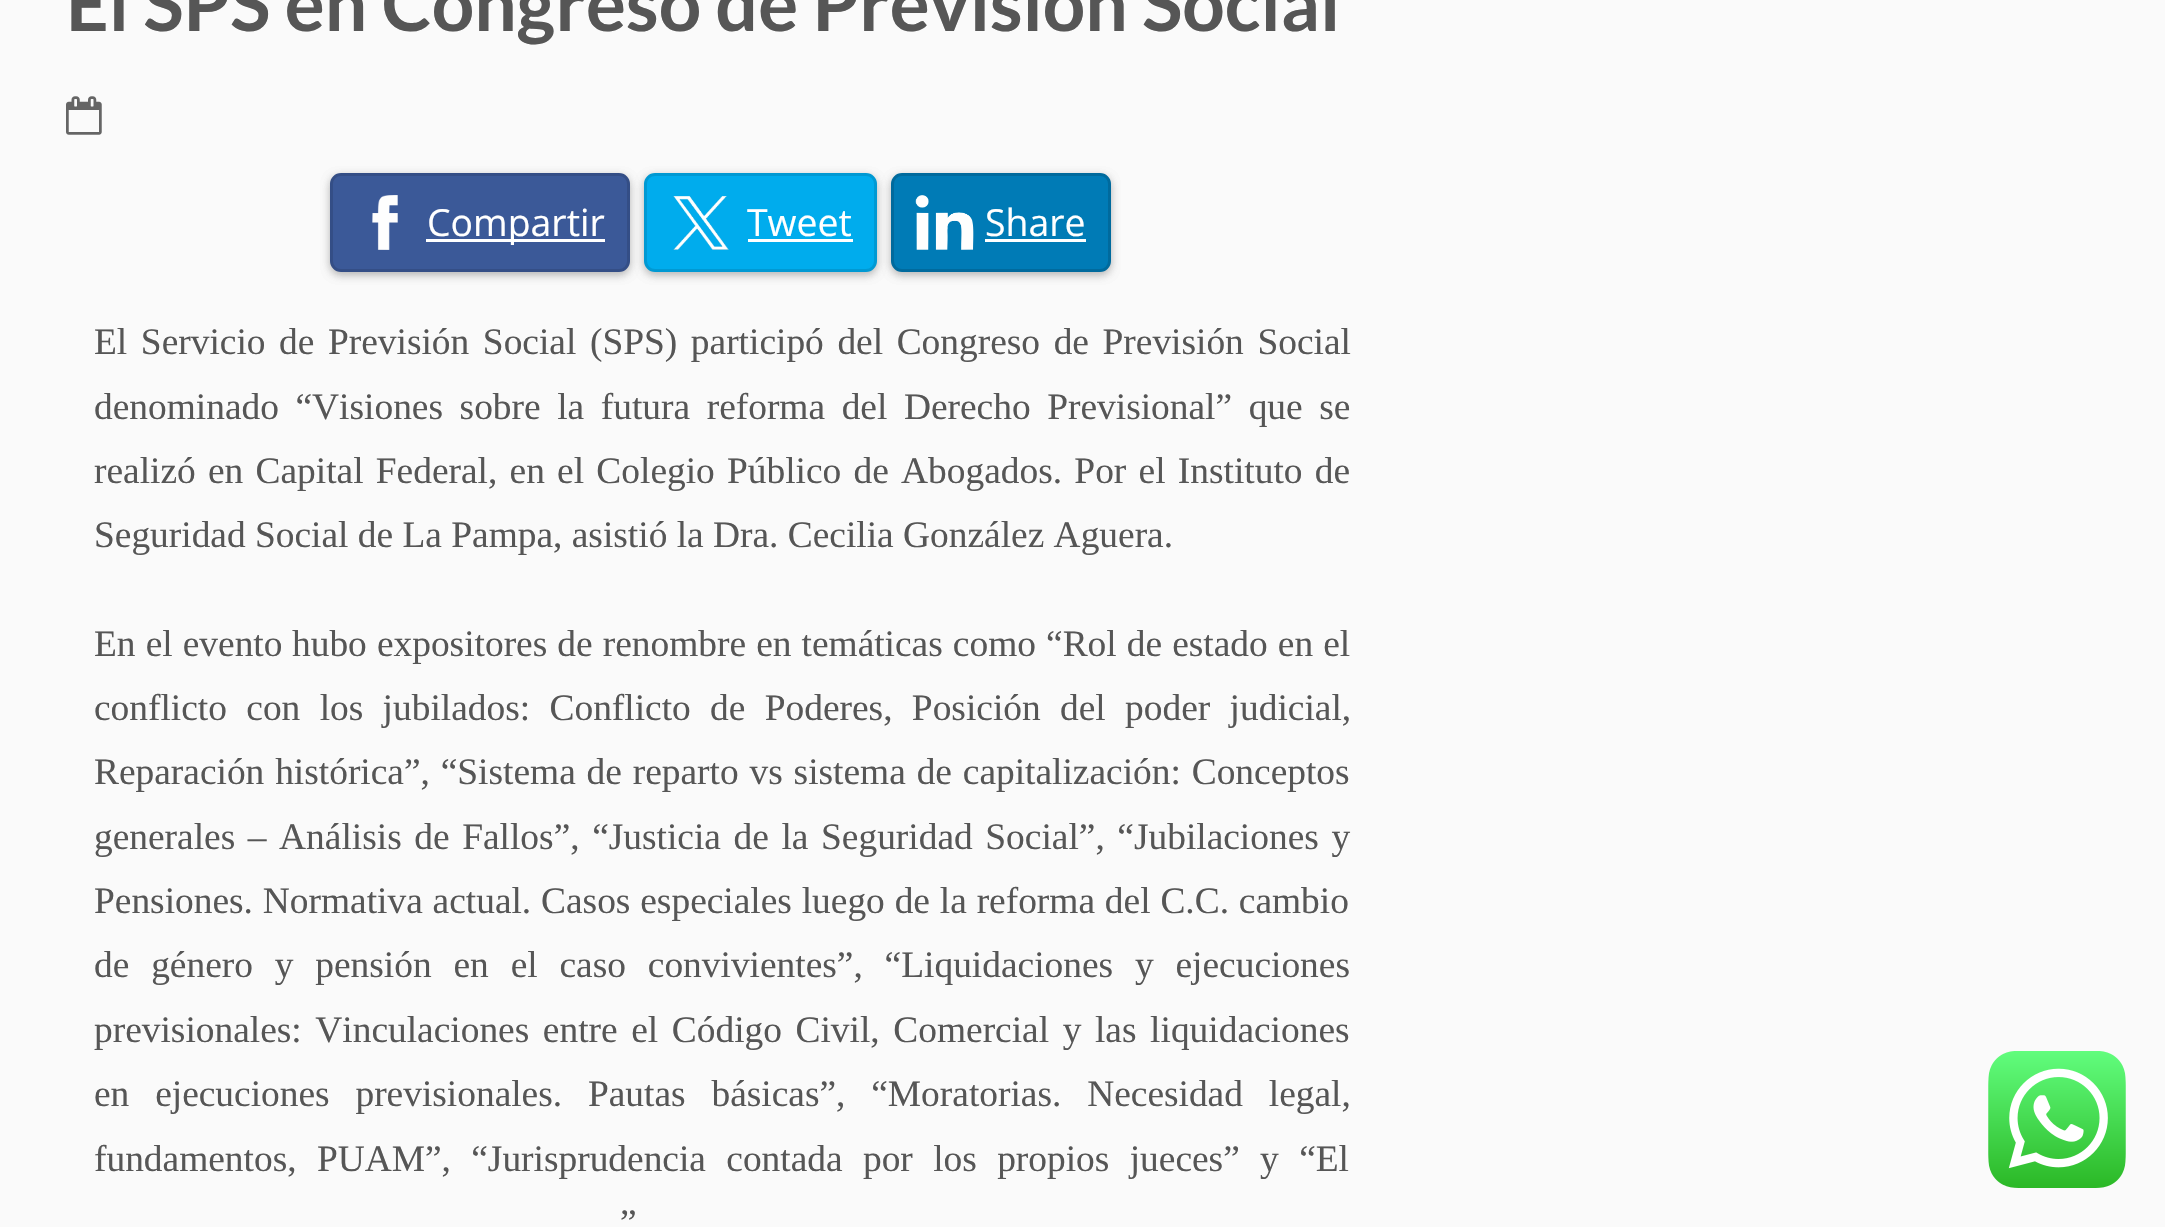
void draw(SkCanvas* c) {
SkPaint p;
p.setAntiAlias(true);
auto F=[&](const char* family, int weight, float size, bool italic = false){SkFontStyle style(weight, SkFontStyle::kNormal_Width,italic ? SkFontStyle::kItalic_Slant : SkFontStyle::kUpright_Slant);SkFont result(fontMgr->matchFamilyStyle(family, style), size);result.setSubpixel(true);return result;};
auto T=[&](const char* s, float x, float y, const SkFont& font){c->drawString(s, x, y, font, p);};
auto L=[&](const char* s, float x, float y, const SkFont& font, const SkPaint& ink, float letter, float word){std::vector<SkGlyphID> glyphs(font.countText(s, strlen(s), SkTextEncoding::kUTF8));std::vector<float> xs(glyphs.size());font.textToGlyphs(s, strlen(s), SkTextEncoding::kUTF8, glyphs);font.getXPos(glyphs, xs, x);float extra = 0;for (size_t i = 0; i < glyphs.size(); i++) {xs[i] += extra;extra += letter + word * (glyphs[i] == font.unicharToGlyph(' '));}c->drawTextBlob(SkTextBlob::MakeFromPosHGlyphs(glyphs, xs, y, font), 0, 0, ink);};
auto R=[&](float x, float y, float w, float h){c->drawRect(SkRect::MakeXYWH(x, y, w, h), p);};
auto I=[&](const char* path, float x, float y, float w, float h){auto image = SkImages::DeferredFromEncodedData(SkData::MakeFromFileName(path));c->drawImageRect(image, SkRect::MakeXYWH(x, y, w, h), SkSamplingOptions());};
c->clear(0xfffafafa);
auto f1 = F("Lato",700,74.75);
p.setColor(0xff565656);
T("El SPS en Congreso de Previsión Social",66,31,f1);
I("1.png",66,96,36,39);
p.setColor(0x26000000);
p.setMaskFilter(SkMaskFilter::MakeBlur(kNormal_SkBlurStyle, 4));
c->drawRoundRect(SkRect::MakeXYWH(330,176,300,99),11,11,p);
p.setMaskFilter(nullptr);
p.setMaskFilter(SkMaskFilter::MakeBlur(kNormal_SkBlurStyle, 4));
c->drawRoundRect(SkRect::MakeXYWH(330,176,300,99),11,11,p);
p.setMaskFilter(nullptr);
p.setColor(0xff3b5998);
c->drawRoundRect(SkRect::MakeXYWH(331.5,174.5,297,96),9.5,9.5,p);
p.setStroke(true);
p.setStrokeWidth(3);
p.setColor(0xff344e86);
c->drawRoundRect(SkRect::MakeXYWH(331.5,174.5,297,96),9.5,9.5,p);
I("2.png",372,195,26,55);
p.setStroke(false);
p.setColor(0xffffffff);
R(426,239,179,3);
auto f2 = F("Open Sans",400,37.4);
T("Compartir",427,236,f2);
p.setColor(0x26000000);
p.setMaskFilter(SkMaskFilter::MakeBlur(kNormal_SkBlurStyle, 4));
c->drawRoundRect(SkRect::MakeXYWH(644,176,233,99),11,11,p);
p.setMaskFilter(nullptr);
p.setMaskFilter(SkMaskFilter::MakeBlur(kNormal_SkBlurStyle, 4));
c->drawRoundRect(SkRect::MakeXYWH(644,176,233,99),11,11,p);
p.setMaskFilter(nullptr);
p.setColor(0xff00aced);
c->drawRoundRect(SkRect::MakeXYWH(645.5,174.5,230,96),9.5,9.5,p);
p.setStroke(true);
p.setColor(0xff0099d3);
c->drawRoundRect(SkRect::MakeXYWH(645.5,174.5,230,96),9.5,9.5,p);
I("3.png",673,196,56,54);
p.setStroke(false);
p.setColor(0xffffffff);
T("Tweet",747,236,f2);
R(748,239,105,3);
p.setColor(0x26000000);
p.setMaskFilter(SkMaskFilter::MakeBlur(kNormal_SkBlurStyle, 4));
c->drawRoundRect(SkRect::MakeXYWH(891,176,220,99),11,11,p);
p.setMaskFilter(nullptr);
p.setMaskFilter(SkMaskFilter::MakeBlur(kNormal_SkBlurStyle, 4));
c->drawRoundRect(SkRect::MakeXYWH(891,176,220,99),11,11,p);
p.setMaskFilter(nullptr);
p.setColor(0xff007bb6);
c->drawRoundRect(SkRect::MakeXYWH(892.5,174.5,217,96),9.5,9.5,p);
p.setStroke(true);
p.setColor(0xff006a9d);
c->drawRoundRect(SkRect::MakeXYWH(892.5,174.5,217,96),9.5,9.5,p);
I("4.png",915,195,59,55);
p.setStroke(false);
p.setColor(0xffffffff);
T("Share",985,236,f2);
R(985,239,101,3);
auto f3 = F("Liberation Serif",400,37.4);
p.setColor(0xff565656);
L("El Servicio de Previsión Social (SPS) participó del Congreso de Previsión Social",94,354,f3,p,0,4.25);
L("denominado “Visiones sobre la futura reforma del Derecho Previsional” que se",94,419,f3,p,0,7.25);
L("realizó en Capital Federal, en el Colegio Público de Abogados. Por el Instituto de",94,483,f3,p,0,2.9);
T("Seguridad Social de La Pampa, asistió la Dra. Cecilia González Aguera.",94,547,f3);
L("En el evento",94,656,f3,p,0,.75);
L("hubo expositores de renombre en temáticas como “Rol de estado en el",292,656,f3,p,0,.75);
L("conflicto con los jubilados: Conflicto de Poderes, Posición del poder judicial,",94,720,f3,p,0,10);
L("Reparación histórica”, “Sistema de reparto vs sistema de capitalización: Conceptos",94,784,f3,p,0,1.5);
L("generales – Análisis de Fallos”, “Justicia de la Seguridad Social”, “Jubilaciones y",94,849,f3,p,0,3.25);
L("Pensiones. Normativa actual. Casos especiales luego de la reforma del C.C. cambio",94,913,f3,p,0,.5);
L("de género y pensión en el caso convivientes”, “Liquidaciones y ejecuciones",94,977,f3,p,0,12.5);
L("previsionales: Vinculaciones entre el Código Civil, Comercial y las liquidaciones",94,1042,f3,p,0,4.25);
L("en ejecuciones previsionales. Pautas básicas”, “Moratorias. Necesidad legal,",94,1106,f3,p,0,16.5);
L("fundamentos, PUAM”, “Jurisprudencia contada por los propios jueces” y “El",94,1171,f3,p,0,11);
T("”",620,1235,f3);
I("5.png",1988,1051,138,137);
}
